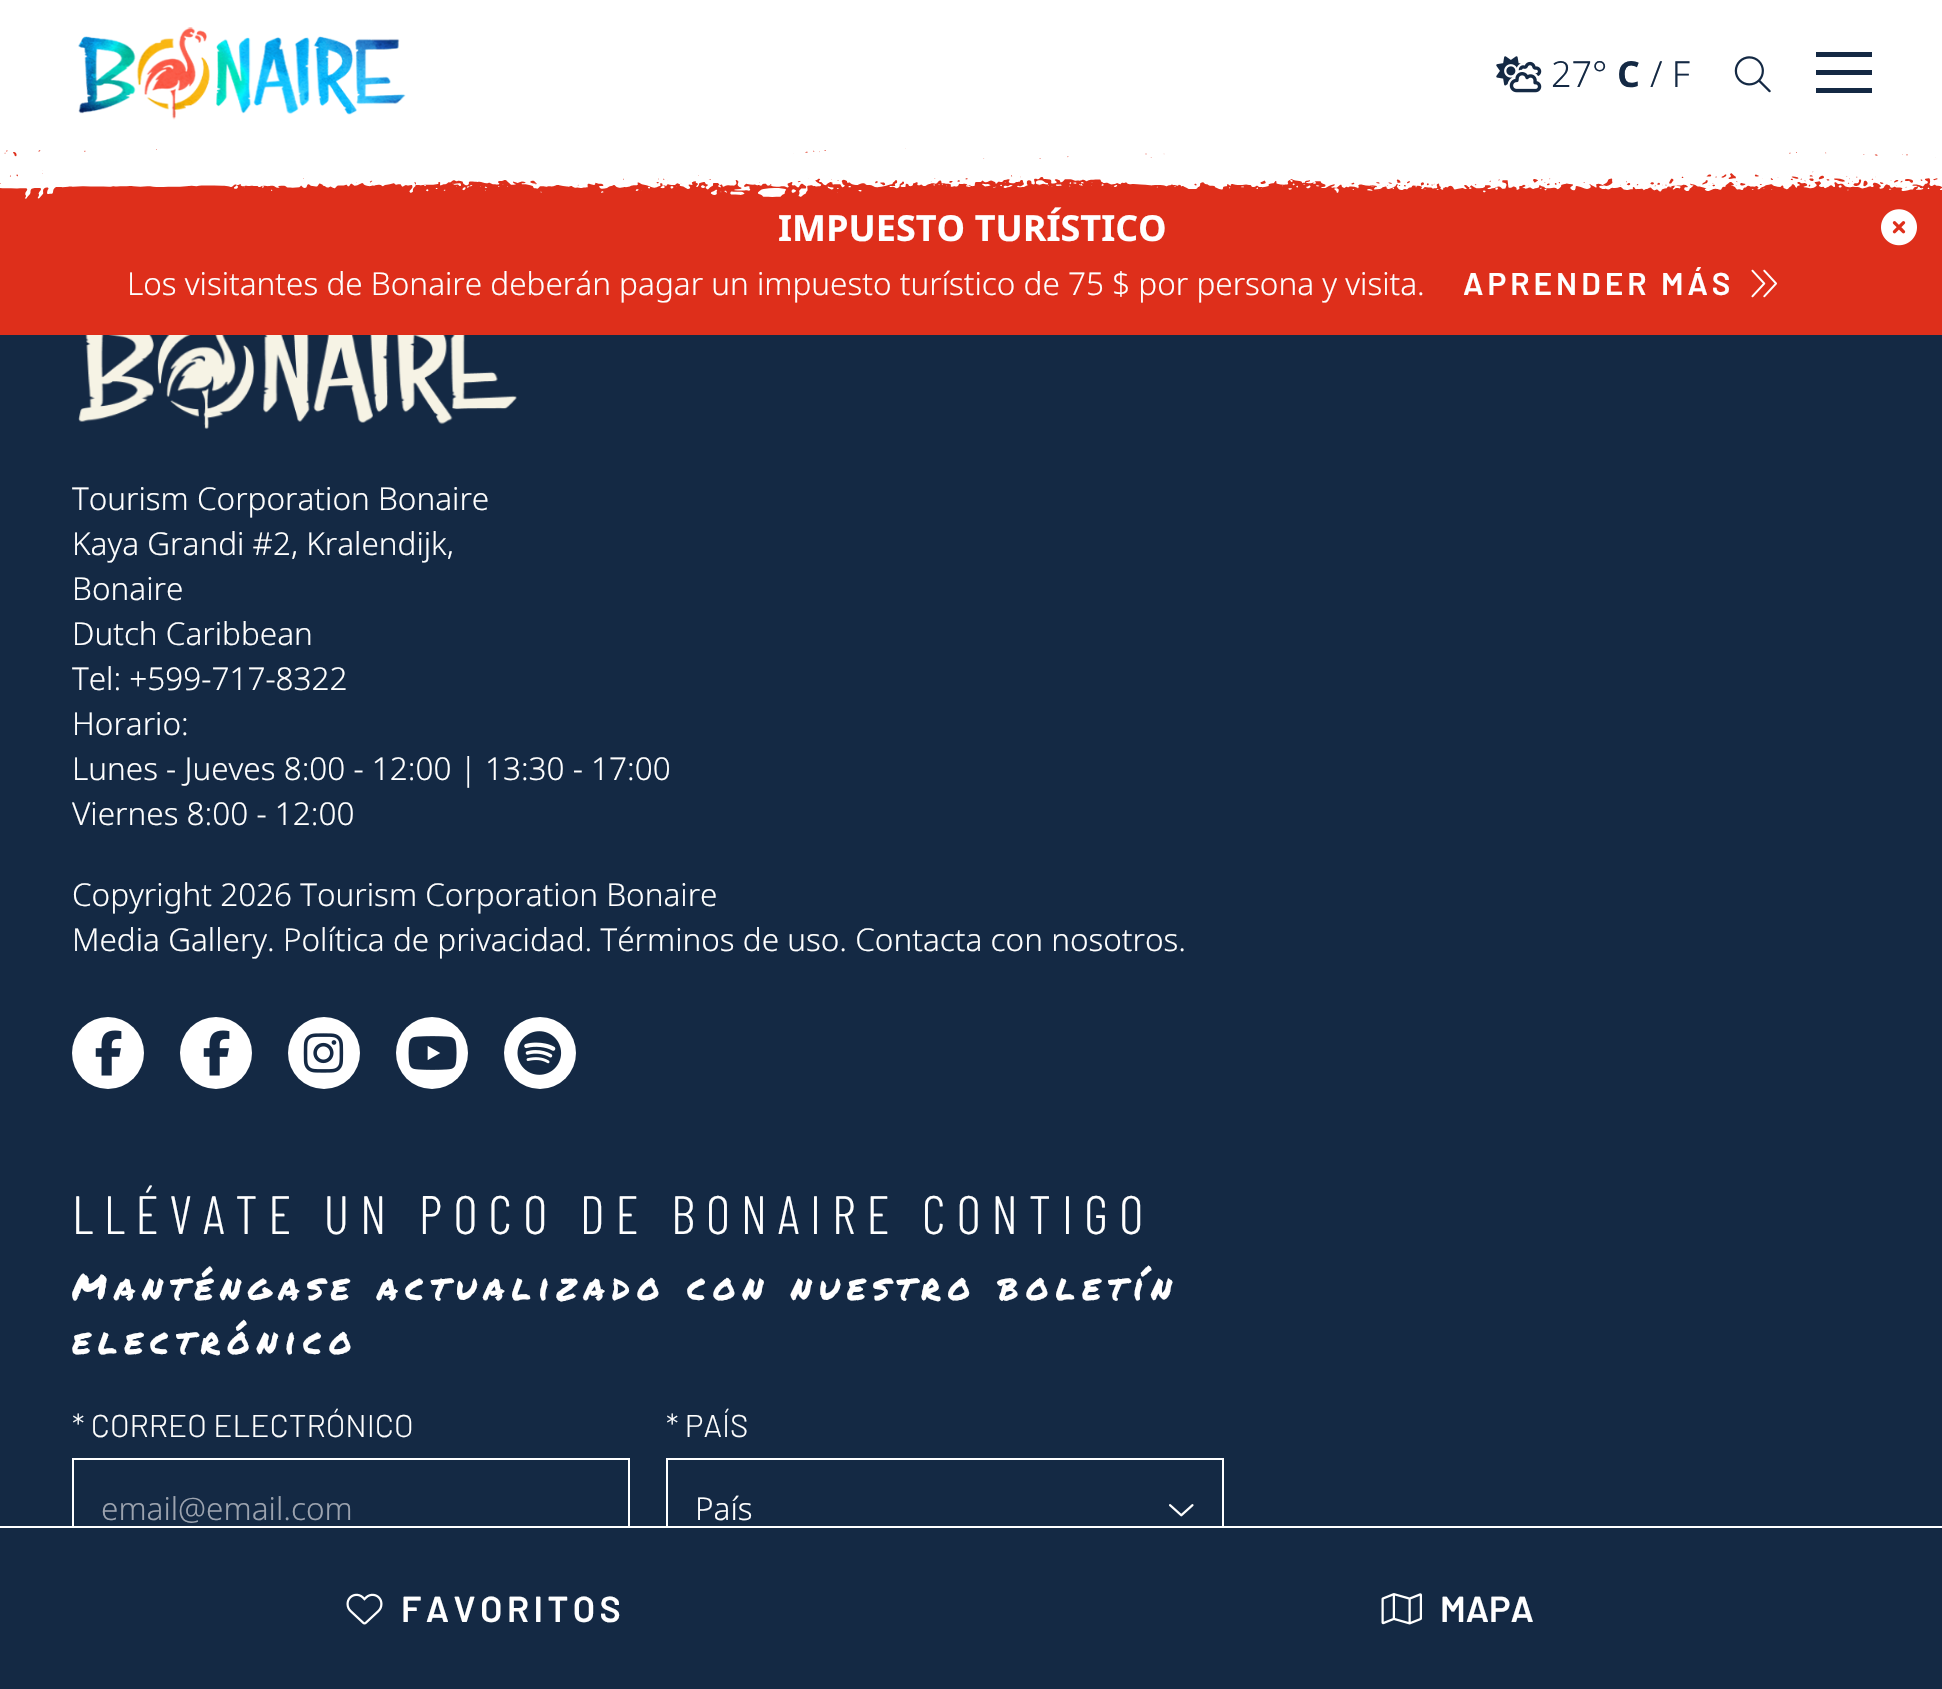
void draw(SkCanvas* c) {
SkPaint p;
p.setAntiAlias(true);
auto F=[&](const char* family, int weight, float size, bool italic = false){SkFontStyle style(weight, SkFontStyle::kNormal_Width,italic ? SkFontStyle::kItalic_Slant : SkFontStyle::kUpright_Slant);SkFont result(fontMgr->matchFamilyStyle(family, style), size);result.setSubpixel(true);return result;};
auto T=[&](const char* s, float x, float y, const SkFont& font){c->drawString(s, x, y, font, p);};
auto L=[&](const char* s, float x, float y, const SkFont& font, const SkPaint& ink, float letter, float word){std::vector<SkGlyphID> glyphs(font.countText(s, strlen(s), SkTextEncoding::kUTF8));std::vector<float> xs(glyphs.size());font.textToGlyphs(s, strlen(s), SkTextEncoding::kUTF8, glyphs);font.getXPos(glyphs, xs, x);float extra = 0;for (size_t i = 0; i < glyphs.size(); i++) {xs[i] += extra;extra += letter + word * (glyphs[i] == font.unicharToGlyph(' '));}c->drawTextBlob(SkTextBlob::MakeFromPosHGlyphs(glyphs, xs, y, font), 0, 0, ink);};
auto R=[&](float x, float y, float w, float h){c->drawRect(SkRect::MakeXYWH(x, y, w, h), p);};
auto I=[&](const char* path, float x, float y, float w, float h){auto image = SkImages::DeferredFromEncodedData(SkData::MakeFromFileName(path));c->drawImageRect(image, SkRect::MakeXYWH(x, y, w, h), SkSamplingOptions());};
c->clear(0xff142944);
p.setColor(0xffffffff);
R(0,0,1942,146);
I("1.png",78,27,328,93);
I("2.png",1496,56,46,37);
auto f1 = F("Noto Sans",300,36);
p.setColor(0xff142944);
T("27°",1551,87,f1);
auto f2 = F("Noto Sans",700,36);
T("C",1617,87,f2);
T("/ F",1650,87,f1);
I("3.png",1734,56,37,37);
R(1816,88,56,5);
R(1816,52,56,5);
R(1816,70,56,5);
p.setColor(0xffde2f1b);
R(0,148,1942,187);
I("4.png",0,146,1942,53);
p.setColor(0xffffffff);
T("IMPUESTO TURÍSTICO",778,241,f2);
I("5.png",1881,209,36,37);
auto f3 = F("Noto Sans",300,31.5);
T("Los visitantes de Bonaire deberán pagar un impuesto turístico de 75 $ por persona y visita.",127,295,f3);
auto f4 = F("Barlow",600,31.5);
L("APRENDER MÁS",1463,295,f4,p,4,0);
I("6.png",1751,269,26,29);
I("7.png",78,335,439,94);
T("Tourism Corporation Bonaire",72,510,f3);
T("Kaya Grandi #2, Kralendijk,",72,555,f3);
T("Bonaire",72,600,f3);
T("Dutch Caribbean",72,645,f3);
T("Tel: +599-717-8322",72,690,f3);
T("Horario:",72,735,f3);
T("Lunes - Jueves 8:00 - 12:00 | 13:30 - 17:00",72,780,f3);
T("Viernes 8:00 - 12:00",72,825,f3);
T("Copyright 2026 Tourism Corporation Bonaire",72,906,f3);
T("Media Gallery. Política de privacidad. Términos de uso. Contacta con nosotros.",72,951,f3);
c->drawCircle(108,1053,36,p);
I("8.png",95,1030,27,46);
c->drawCircle(216,1053,36,p);
I("8.png",203,1030,27,46);
c->drawCircle(324,1053,36,p);
I("9.png",303,1033,41,40);
c->drawCircle(432,1053,36,p);
I("10.png",408,1036,49,34);
c->drawCircle(540,1053,36,p);
I("11.png",517,1031,45,44);
auto f5 = F("Barlow Condensed",300,54);
L("LLÉVATE UN POCO DE BONAIRE CONTIGO",72,1234,f5,p,10.8,0);
auto f6 = F("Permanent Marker",400,36);
L("Manténgase actualizado con nuestro boletín",72,1300,f6,p,7.2,0);
L("electrónico",72,1354,f6,p,7.2,0);
auto f7 = F("Barlow",300,31.5);
T("* CORREO ELECTRÓNICO",72,1437,f7);
p.setStroke(true);
p.setStrokeWidth(2);
c->drawRect(SkRect::MakeXYWH(73,1459,556,102),p);
p.setStroke(false);
p.setColor(0xff9ca3af);
T("email@email.com",101,1520,f3);
p.setColor(0xffffffff);
T("* PAÍS",666,1437,f7);
I("12.png",1169,1504,25,13);
p.setStroke(true);
c->drawRect(SkRect::MakeXYWH(667,1459,556,102),p);
p.setStroke(false);
T("País",695,1520,f3);
R(0,1526,1942,2);
p.setColor(0xff142944);
R(72,1528,1152,34);
I("13.png",346,1593,37,32);
auto f8 = F("Barlow",600,36);
p.setColor(0xffffffff);
L("FAVORITOS",401,1622,f8,p,4.5,0);
I("14.png",1381,1593,41,32);
T("MAPA",1440,1622,f8);
}
